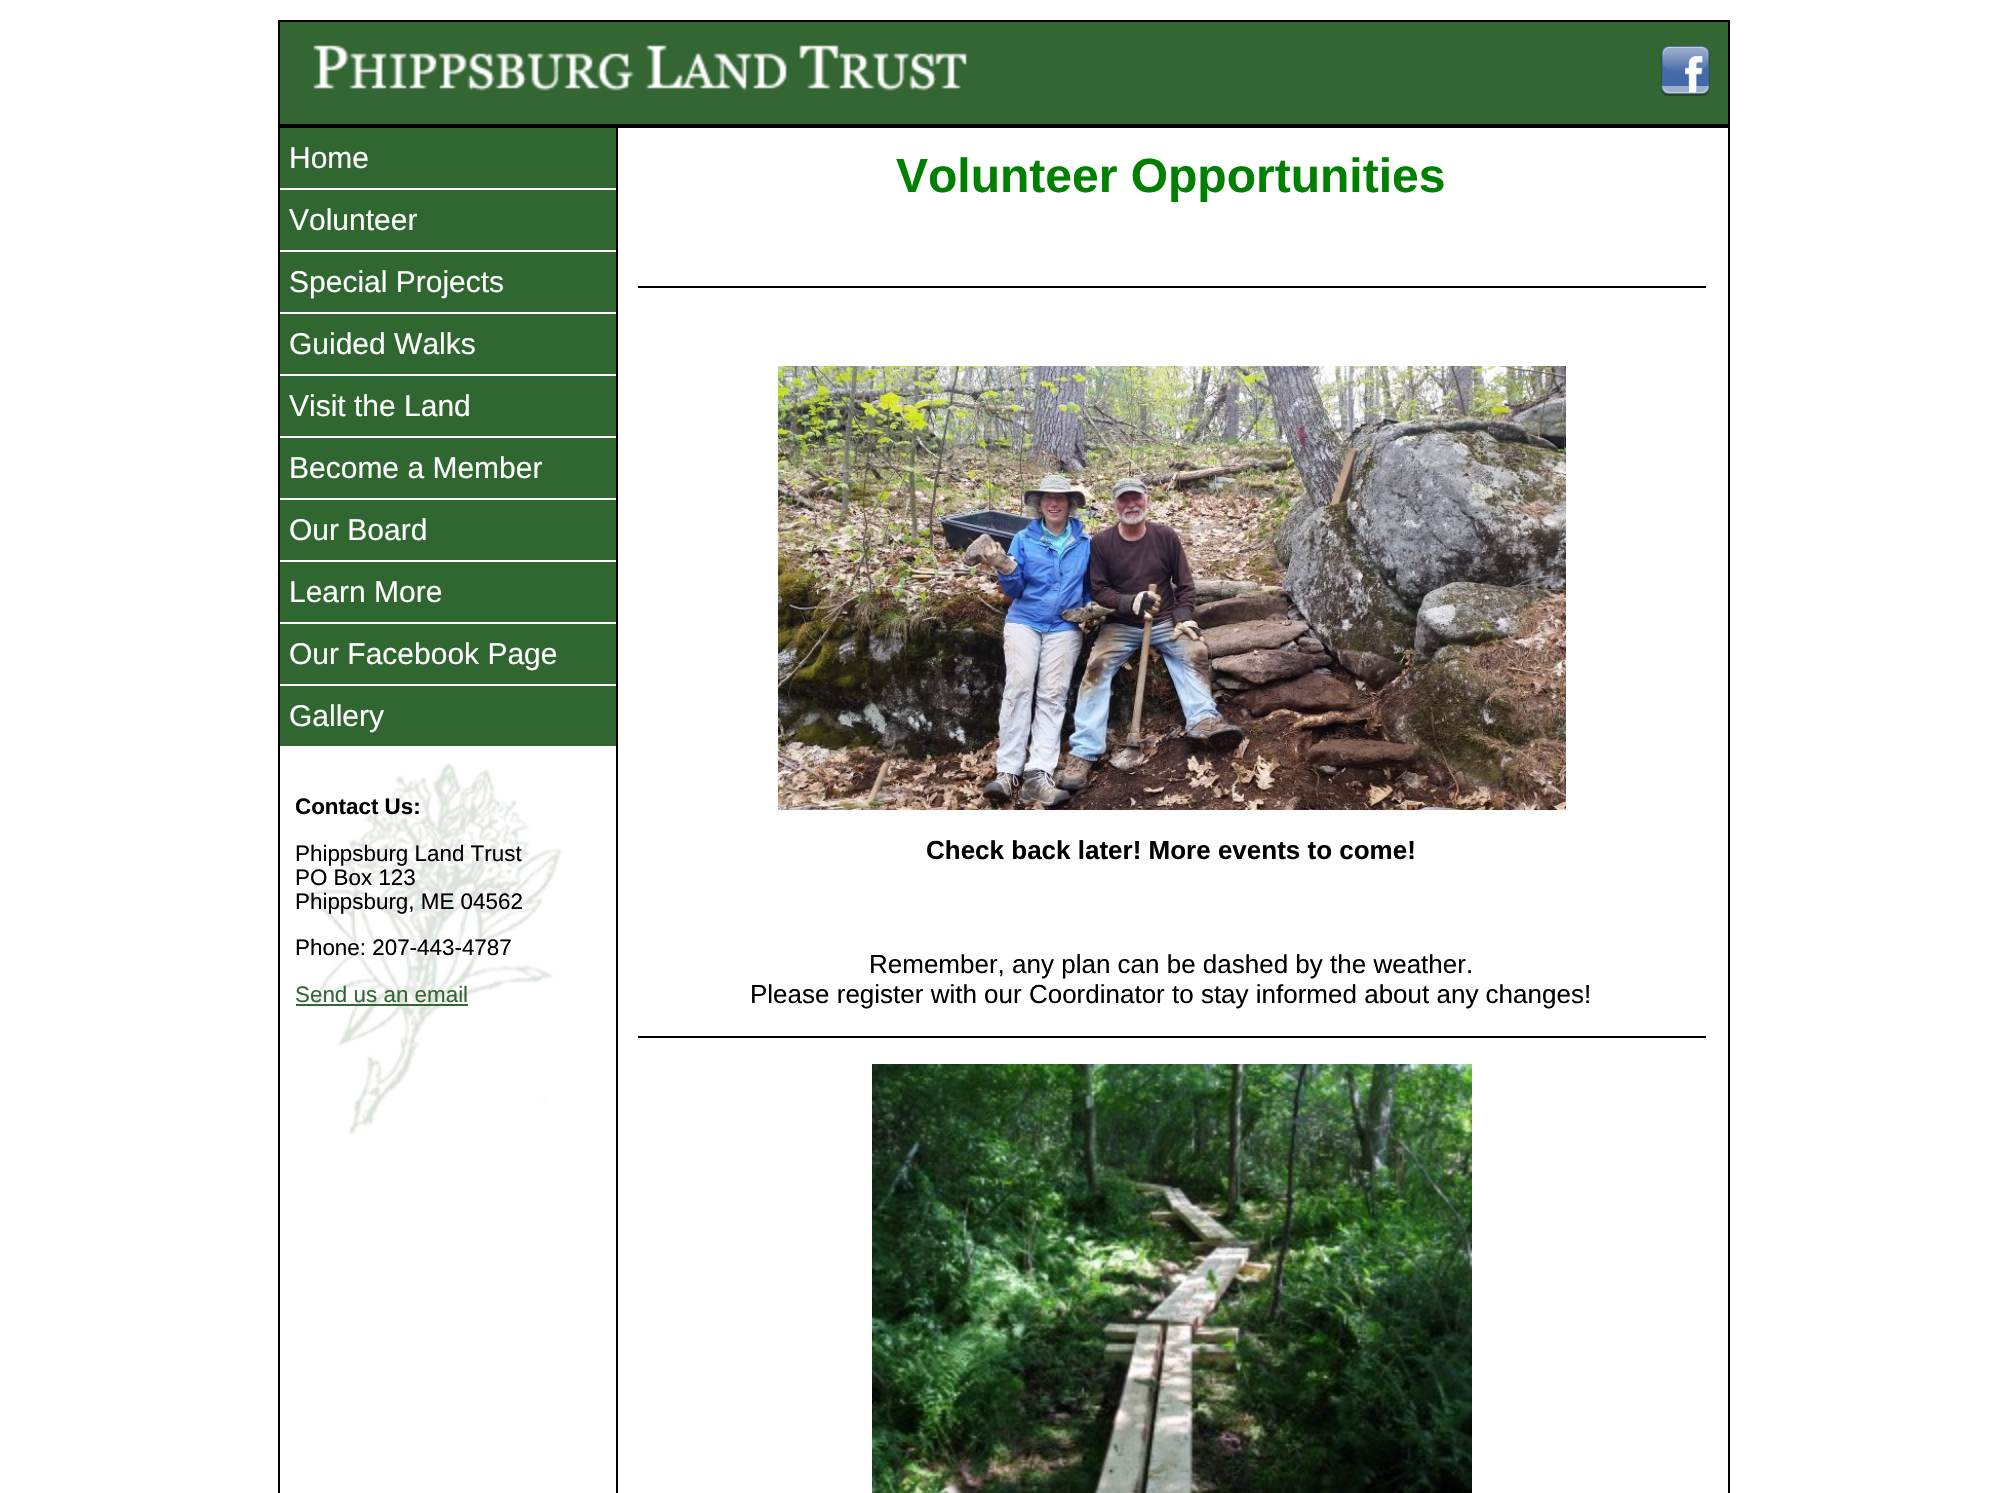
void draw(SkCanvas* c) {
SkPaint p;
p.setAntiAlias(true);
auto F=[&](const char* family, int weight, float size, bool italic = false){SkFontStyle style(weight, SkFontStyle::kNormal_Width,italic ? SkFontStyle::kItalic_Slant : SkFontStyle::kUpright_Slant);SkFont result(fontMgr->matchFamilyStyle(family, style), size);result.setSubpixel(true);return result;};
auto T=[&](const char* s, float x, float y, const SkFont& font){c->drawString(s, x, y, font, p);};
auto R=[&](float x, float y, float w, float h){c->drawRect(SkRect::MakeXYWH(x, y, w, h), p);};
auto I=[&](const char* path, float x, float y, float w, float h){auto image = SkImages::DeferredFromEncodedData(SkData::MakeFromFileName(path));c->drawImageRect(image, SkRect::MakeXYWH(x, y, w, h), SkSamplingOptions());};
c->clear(0xffffffff);
p.setStroke(true);
p.setStrokeWidth(2);
p.setColor(0xff000000);
c->drawRect(SkRect::MakeXYWH(279,21,1450,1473),p);
I("1.png",280,22,1448,102);
I("2.png",1660,46,50,50);
p.setStroke(false);
R(280,124,1448,4);
R(616,128,2,1365);
p.setColor(0xff306731);
R(280,128,336,60);
auto f1 = F("Liberation Sans",400,30);
p.setColor(0xffffffff);
T("Home",289,168,f1);
p.setColor(0xff306731);
R(280,190,336,60);
p.setColor(0xffffffff);
T("Volunteer",289,230,f1);
p.setColor(0xff306731);
R(280,252,336,60);
p.setColor(0xffffffff);
T("Special Projects",289,292,f1);
p.setColor(0xff306731);
R(280,314,336,60);
p.setColor(0xffffffff);
T("Guided Walks",289,354,f1);
p.setColor(0xff306731);
R(280,376,336,60);
p.setColor(0xffffffff);
T("Visit the Land",289,416,f1);
p.setColor(0xff306731);
R(280,438,336,60);
p.setColor(0xffffffff);
T("Become a Member",289,478,f1);
p.setColor(0xff306731);
R(280,500,336,60);
p.setColor(0xffffffff);
T("Our Board",289,540,f1);
p.setColor(0xff306731);
R(280,562,336,60);
p.setColor(0xffffffff);
T("Learn More",289,602,f1);
p.setColor(0xff306731);
R(280,624,336,60);
p.setColor(0xffffffff);
T("Our Facebook Page",289,664,f1);
p.setColor(0xff306731);
R(280,686,336,60);
p.setColor(0xffffffff);
T("Gallery",289,726,f1);
I("3.png",305,763,257,372);
auto f2 = F("Liberation Sans",700,22.4);
p.setColor(0xff000000);
T("Contact Us:",295,814,f2);
auto f3 = F("Liberation Sans",400,22.4);
T("Phippsburg Land Trust",295,861,f3);
T("PO Box 123",295,885,f3);
T("Phippsburg, ME 04562",295,909,f3);
T("Phone: 207-443-4787",295,955,f3);
p.setColor(0xff336633);
T("Send us an email",295,1002,f3);
R(296,1004,172,2);
auto f4 = F("Liberation Sans",700,48);
p.setColor(0xff008000);
T("Volunteer Opportunities",896,192,f4);
p.setColor(0xff000000);
R(638,286,1068,2);
I("4.png",778,366,788,444);
auto f5 = F("Liberation Sans",700,26);
T("Check back later! More events to come!",926,859,f5);
auto f6 = F("Liberation Sans",400,26);
T("Remember, any plan can be dashed by the weather.",869,973,f6);
T("Please register with our Coordinator to stay informed about any changes!",750,1003,f6);
R(638,1036,1068,2);
I("5.png",872,1064,600,429);
}
